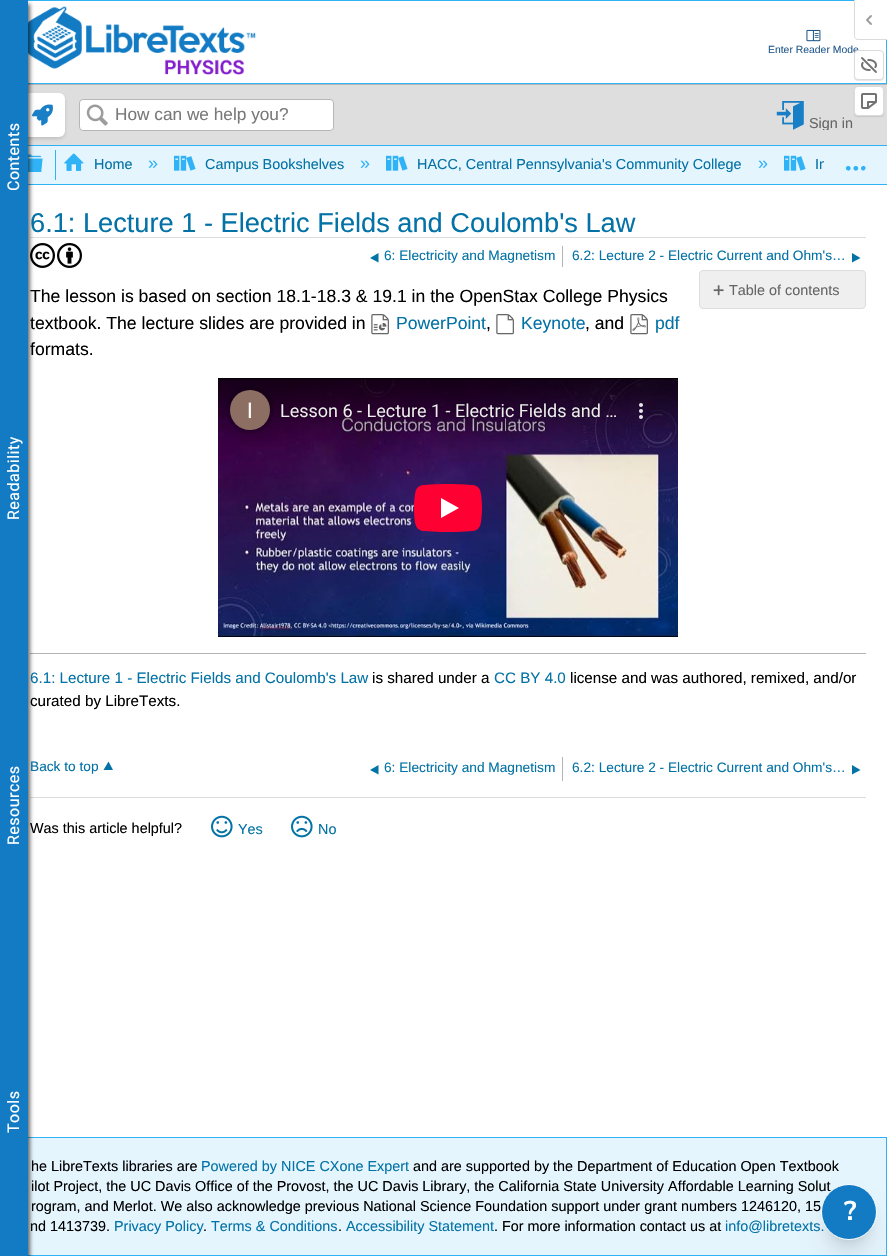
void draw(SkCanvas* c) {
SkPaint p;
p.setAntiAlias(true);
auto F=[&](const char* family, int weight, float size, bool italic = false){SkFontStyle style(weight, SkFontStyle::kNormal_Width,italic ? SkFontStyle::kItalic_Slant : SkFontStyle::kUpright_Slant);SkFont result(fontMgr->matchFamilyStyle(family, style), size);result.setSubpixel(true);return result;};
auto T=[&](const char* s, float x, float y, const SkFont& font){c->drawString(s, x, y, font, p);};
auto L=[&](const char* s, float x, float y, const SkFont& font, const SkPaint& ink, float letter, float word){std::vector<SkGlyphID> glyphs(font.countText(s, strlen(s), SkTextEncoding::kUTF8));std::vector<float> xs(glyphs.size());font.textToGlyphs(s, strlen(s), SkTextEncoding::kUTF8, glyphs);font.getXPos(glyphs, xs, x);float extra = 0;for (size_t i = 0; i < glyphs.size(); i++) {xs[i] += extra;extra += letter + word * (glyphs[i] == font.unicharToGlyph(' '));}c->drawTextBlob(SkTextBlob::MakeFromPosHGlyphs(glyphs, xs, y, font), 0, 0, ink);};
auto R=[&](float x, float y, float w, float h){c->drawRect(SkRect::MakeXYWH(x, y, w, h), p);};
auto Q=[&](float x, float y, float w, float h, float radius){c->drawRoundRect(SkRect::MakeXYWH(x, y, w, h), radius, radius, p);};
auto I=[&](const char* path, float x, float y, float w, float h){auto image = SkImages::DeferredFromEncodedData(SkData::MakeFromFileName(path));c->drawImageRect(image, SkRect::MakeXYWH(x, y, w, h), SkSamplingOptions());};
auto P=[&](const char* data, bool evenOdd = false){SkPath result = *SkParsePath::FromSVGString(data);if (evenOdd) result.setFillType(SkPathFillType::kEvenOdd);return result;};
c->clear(0xffffffff);
p.setStroke(true);
p.setStrokeWidth(1);
p.setColor(0xff30b3f6);
c->drawRect(SkRect::MakeXYWH(.5,.5,886,83),p);
I("1.png",28,6,228,69);
p.setStroke(false);
p.setColor(0xffdedede);
R(28,85,859,60);
p.setColor(0xffb6b6b6);
R(28,84,859,1);
p.setColor(0xffe5f5fe);
R(28,146,859,38);
p.setColor(0xff30b3f6);
R(28,145,859,1);
p.setColor(0x33080808);
p.setMaskFilter(SkMaskFilter::MakeBlur(kNormal_SkBlurStyle, 2.5));
c->drawRoundRect(SkRect::MakeXYWH(22,96,42,42),5,5,p);
p.setMaskFilter(nullptr);
p.setColor(0xffffffff);
Q(21,93,44,44,6);
I("3.png",32,104,21,22);
p.setColor(0xff30b3f6);
R(28,184,859,1);
I("6.png",28,154,15,18);
p.setColor(0xffdddddd);
R(30,237,836,1);
I("10.png",30,243,25,25);
p.setColor(0xffb4b4b4);
R(30,653,836,1);
p.setColor(0xffdddddd);
R(30,797,836,1);
p.setColor(0xffe5f5fe);
R(28,1138,858,117);
p.setStroke(true);
p.setColor(0xff30b3f6);
c->drawRect(SkRect::MakeXYWH(.5,1137.5,886,118),p);
p.setStroke(false);
p.setColor(0x99000000);
p.setMaskFilter(SkMaskFilter::MakeBlur(kNormal_SkBlurStyle, 2));
c->drawRect(SkRect::MakeXYWH(2,4,28,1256),p);
p.setMaskFilter(nullptr);
p.setColor(0xff127bc4);
R(0,0,28,1256);
auto f1 = F("Roboto",400,16);
p.setColor(0xffffffff);
c->save();
c->rotate(-90,19,191);
L("Contents",19,191,f1,p,.5,0);
c->restore();
c->save();
c->rotate(-90,19,520);
L("Readability",19,520,f1,p,.5,0);
c->restore();
c->save();
c->rotate(-90,19,845);
L("Resources",19,845,f1,p,.5,0);
c->restore();
c->save();
c->rotate(-90,19,1133);
L("Tools",19,1133,f1,p,.5,0);
c->restore();
I("2.png",806,29,15,13);
auto f2 = F("Liberation Sans",400,10.4);
p.setColor(0xff235a8b);
T("Enter Reader Mode",768,53,f2);
p.setColor(0xffffffff);
c->drawRoundRect(SkRect::MakeXYWH(79.5,99.5,254,31),3.5,3.5,p);
p.setStroke(true);
p.setColor(0xffb6b6b6);
c->drawRoundRect(SkRect::MakeXYWH(79.5,99.5,254,31),3.5,3.5,p);
I("4.png",86,104,22,22);
auto f3 = F("Liberation Sans",400,17.25);
p.setStroke(false);
p.setColor(0xff797979);
T("How can we help you?",115,120,f3);
I("5.png",776,101,28,29);
c->save();
c->clipRect(SkRect::MakeXYWH(775,100,84,30));
auto f4 = F("Liberation Sans",400,14.4);
p.setColor(0xff666666);
T("Sign in",809,128,f4);
c->restore();
p.setColor(0xff30b3f6);
R(55,150,1,30);
I("7.png",64,153,20,18);
p.setColor(0xff0372a6);
T("Home",94,169,f4);
auto f5 = F("Liberation Sans",400,18);
p.setColor(0xff30b3f6);
T("»",148,169,f5);
I("8.png",174,155,22,16);
p.setColor(0xff0372a6);
T("Campus Bookshelves",205,169,f4);
p.setColor(0xff30b3f6);
T("»",360,169,f5);
I("8.png",386,155,22,16);
p.setColor(0xff0372a6);
T("HACC, Central Pennsylvania's Community College",417,169,f4);
p.setColor(0xff30b3f6);
T("»",758,169,f5);
I("8.png",784,155,22,16);
c->save();
c->clipRect(SkRect::MakeXYWH(56,150,768,30));
p.setColor(0xff0372a6);
T("In",815,169,f4);
c->restore();
I("9.png",845,165,21,6);
auto f6 = F("Liberation Sans",400,27.2);
T("6.1: Lecture 1 - Electric Fields and Coulomb's Law",30,232,f6);
I("11.png",57,243,25,25);
p.setColor(0xffb4b4b4);
R(562,246,1,21);
p.setColor(0xff0372a6);
c->drawPath(P("M378.5 253v9.5l-8.5-4.5z"),p);
auto f7 = F("Liberation Sans",400,13.7);
T("6: Electricity and Magnetism",384,260,f7);
T("6.2: Lecture 2 - Electric Current and Ohm's…",572,260,f7);
c->drawPath(P("M852 253v9.5l8.5-4.5z"),p);
p.setColor(0xffefefef);
c->drawRoundRect(SkRect::MakeXYWH(699.5,270.5,166,38),3.5,3.5,p);
p.setStroke(true);
p.setColor(0xffdddddd);
c->drawRoundRect(SkRect::MakeXYWH(699.5,270.5,166,38),3.5,3.5,p);
I("12.png",713,285,11,11);
p.setStroke(false);
p.setColor(0xff666666);
T("Table of contents",729,295,f4);
auto f8 = F("Liberation Sans",400,17.6);
p.setColor(0xff000000);
T("The lesson is based on section 18.1-18.3 & 19.1 in the OpenStax College Physics",30,302,f8);
T("textbook. The lecture slides are provided in",30,329,f8);
I("13.png",371,314,18,21);
p.setColor(0xff0372a6);
T("PowerPoint",396,329,f8);
p.setColor(0xff000000);
T(",",486,329,f8);
I("14.png",496,314,18,21);
p.setColor(0xff0372a6);
T("Keynote",521,329,f8);
p.setColor(0xff000000);
T(", and",585,329,f8);
I("15.png",630,314,18,21);
p.setColor(0xff0372a6);
T("pdf",655,329,f8);
p.setColor(0xff000000);
T("formats.",30,355,f8);
I("16.png",218,378,460,259);
auto f9 = F("Liberation Sans",400,15.2);
p.setColor(0xff0372a6);
T("6.1: Lecture 1 - Electric Fields and Coulomb's Law",30,683,f9);
p.setColor(0xff000000);
T("is shared under a",372,683,f9);
p.setColor(0xff0372a6);
T("CC BY 4.0",494,683,f9);
p.setColor(0xff000000);
T("license and was authored, remixed, and/or",570,683,f9);
T("curated by LibreTexts.",30,706,f9);
p.setColor(0xff0372a6);
T("Back to top",30,771,f7);
c->drawPath(P("M103.5 770h9.5l-4.5-8.5z"),p);
p.setColor(0xffb4b4b4);
R(562,757,1,24);
p.setColor(0xff0372a6);
c->drawPath(P("M378.5 765v9.5l-8.5-4.5z"),p);
T("6: Electricity and Magnetism",384,772,f7);
T("6.2: Lecture 2 - Electric Current and Ohm's…",572,772,f7);
c->drawPath(P("M852 765v9.5l8.5-4.5z"),p);
p.setColor(0xff000000);
T("Was this article helpful?",30,833,f4);
I("17.png",211,815,22,23);
p.setColor(0xff0372a6);
T("Yes",238,834,f4);
I("18.png",291,815,22,23);
T("No",318,834,f4);
p.setColor(0xff000000);
T("he LibreTexts libraries are",31,1171,f4);
p.setColor(0xff0372a6);
T("Powered by NICE CXone Expert",201,1171,f4);
p.setColor(0xff000000);
T("and are supported by the Department of Education Open Textbook",413,1171,f4);
T("ilot Project, the UC Davis Office of the Provost, the UC Davis Library, the California State University Affordable Learning Solut",31,1191,f4);
T("rogram, and Merlot. We also acknowledge previous National Science Foundation support under grant numbers 1246120, 15",31,1211,f4);
T("nd 1413739.",30,1231,f4);
p.setColor(0xff0372a6);
T("Privacy Policy",114,1231,f4);
p.setColor(0xff000000);
T(".",203,1231,f4);
p.setColor(0xff0372a6);
T("Terms & Conditions",211,1231,f4);
p.setColor(0xff000000);
T(".",338,1231,f4);
p.setColor(0xff0372a6);
T("Accessibility Statement",346,1231,f4);
p.setColor(0xff000000);
T(". For more information contact us at",494,1231,f4);
p.setColor(0xff0372a6);
T("info@libretexts.",725,1231,f4);
p.setColor(0x1a000000);
p.setMaskFilter(SkMaskFilter::MakeBlur(kNormal_SkBlurStyle, 5));
c->drawRoundRect(SkRect::MakeXYWH(827,1198,44,44),22,22,p);
p.setMaskFilter(nullptr);
p.setMaskFilter(SkMaskFilter::MakeBlur(kNormal_SkBlurStyle, 12.5));
c->drawRoundRect(SkRect::MakeXYWH(826,1209,46,46),23,23,p);
p.setMaskFilter(nullptr);
p.setColor(0xff127bc4);
c->drawCircle(849,1212,27.5,p);
p.setStroke(true);
p.setColor(0xffffffff);
c->drawCircle(849,1212,27.5,p);
auto f10 = F("Nunito Sans",700,27);
p.setStroke(false);
T("?",844,1220,f10);
c->drawPath(P("M855 0h32v39h-29c-1.5 0-3-1.5-3-3z"),p);
p.setColor(0xffdbdbdb);
c->drawPath(P("M854 0h33v40h-29c-2 0-4-2-4-4zm1 0h32v39h-29c-2 0-3-1-3-3z",true),p);
I("19.png",866,15,6,10);
p.setColor(0x1a000000);
p.setMaskFilter(SkMaskFilter::MakeBlur(kNormal_SkBlurStyle, .5));
c->drawRoundRect(SkRect::MakeXYWH(854,51,30,30),4,4,p);
p.setMaskFilter(nullptr);
p.setColor(0xffffffff);
c->drawRoundRect(SkRect::MakeXYWH(854.5,50.5,29,29),3.5,3.5,p);
p.setStroke(true);
p.setColor(0xffdbdbdb);
c->drawRoundRect(SkRect::MakeXYWH(854.5,50.5,29,29),3.5,3.5,p);
I("20.png",861,57,16,16);
p.setStroke(false);
p.setColor(0x1a000000);
p.setMaskFilter(SkMaskFilter::MakeBlur(kNormal_SkBlurStyle, .5));
c->drawRoundRect(SkRect::MakeXYWH(854,87,30,30),4,4,p);
p.setMaskFilter(nullptr);
p.setColor(0xffffffff);
c->drawRoundRect(SkRect::MakeXYWH(854.5,86.5,29,29),3.5,3.5,p);
p.setStroke(true);
p.setColor(0xffdbdbdb);
c->drawRoundRect(SkRect::MakeXYWH(854.5,86.5,29,29),3.5,3.5,p);
I("21.png",861,93,16,16);
}
